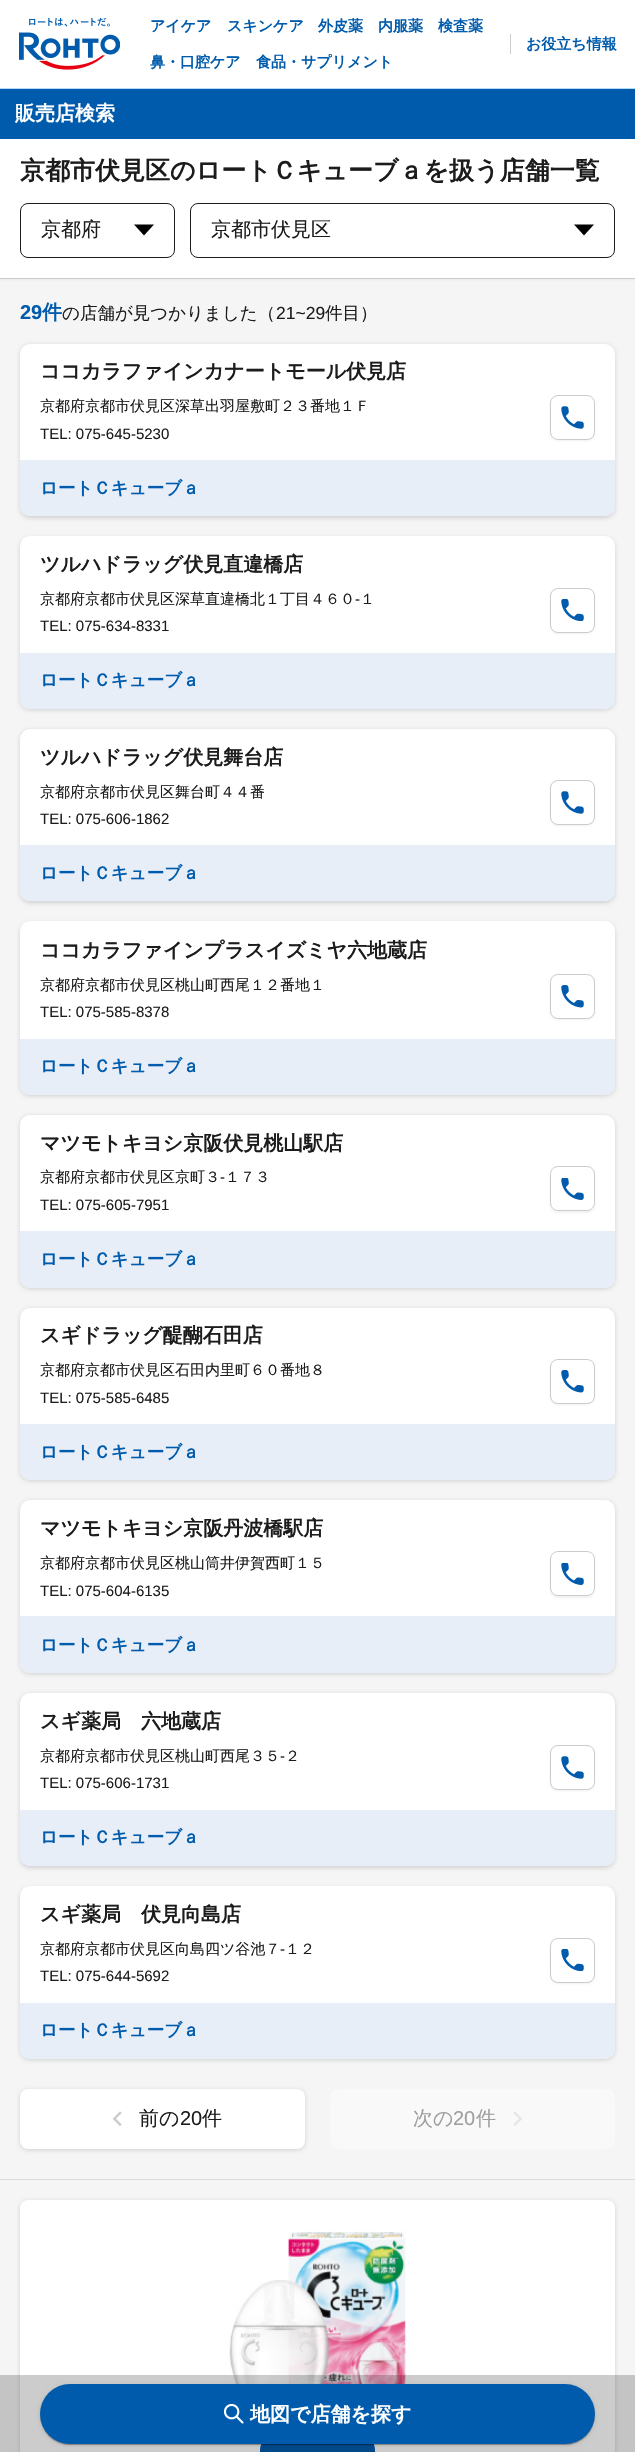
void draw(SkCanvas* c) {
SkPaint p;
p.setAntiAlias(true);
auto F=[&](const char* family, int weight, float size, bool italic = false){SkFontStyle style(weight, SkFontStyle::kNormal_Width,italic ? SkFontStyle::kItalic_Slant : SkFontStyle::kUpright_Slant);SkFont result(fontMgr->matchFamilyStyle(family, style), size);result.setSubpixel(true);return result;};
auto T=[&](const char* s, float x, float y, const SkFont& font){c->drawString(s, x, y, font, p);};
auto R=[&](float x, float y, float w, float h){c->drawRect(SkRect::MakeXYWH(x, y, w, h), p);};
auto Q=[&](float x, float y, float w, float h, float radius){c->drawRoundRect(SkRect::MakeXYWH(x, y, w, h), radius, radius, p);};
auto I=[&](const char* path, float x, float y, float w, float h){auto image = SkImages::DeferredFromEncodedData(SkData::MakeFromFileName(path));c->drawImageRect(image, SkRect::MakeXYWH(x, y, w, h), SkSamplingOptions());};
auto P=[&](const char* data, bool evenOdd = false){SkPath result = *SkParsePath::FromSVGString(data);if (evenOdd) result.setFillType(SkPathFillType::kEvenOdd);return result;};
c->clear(0xffffffff);
p.setColor(0xffb5dcff);
R(0,88,635,1);
I("1.png",19,18,101,52);
auto f1 = F("WenQuanYi Zen Hei",700,15);
p.setColor(0xff005bac);
T("アイケア",150,31,f1);
T("スキンケア",227,31,f1);
T("外皮薬",318,31,f1);
T("内服薬",378,31,f1);
T("検査薬",438,31,f1);
T("鼻・口腔ケア",150,67,f1);
T("食品・サプリメント",256,67,f1);
p.setColor(0xffcccccc);
R(510,34,1,20);
p.setColor(0xff005bac);
T("お役立ち情報",526,49,f1);
p.setColor(0xfff5f5f5);
R(0,279,635,2173);
p.setColor(0xff005bac);
R(0,89,635,50);
auto f2 = F("WenQuanYi Zen Hei",700,20);
p.setColor(0xffffffff);
T("販売店検索",15,120,f2);
auto f3 = F("WenQuanYi Zen Hei",700,25);
p.setColor(0xff1c1c1c);
T("京都市伏見区のロートＣキューブａを扱う店舗一覧",20,179,f3);
p.setColor(0x0d000000);
p.setMaskFilter(SkMaskFilter::MakeBlur(kNormal_SkBlurStyle, 1));
c->drawRect(SkRect::MakeXYWH(0,204,635,76),p);
p.setMaskFilter(nullptr);
p.setColor(0xffffffff);
R(0,203,635,75);
p.setColor(0xffcccccc);
R(0,278,635,1);
p.setStroke(true);
p.setStrokeWidth(1);
p.setColor(0xff1c1c1c);
c->drawRoundRect(SkRect::MakeXYWH(20.5,203.5,154,54),7.5,7.5,p);
auto f4 = F("WenQuanYi Zen Hei",500,20);
p.setStroke(false);
T("京都府",41,236,f4);
p.setColor(0xff000000);
c->drawPath(P("M144 235.5l-10-11h20z"),p);
p.setStroke(true);
p.setColor(0xff1c1c1c);
c->drawRoundRect(SkRect::MakeXYWH(190.5,203.5,424,54),7.5,7.5,p);
p.setStroke(false);
T("京都市伏見区",211,236,f4);
p.setColor(0xff000000);
c->drawPath(P("M584 235.5l-10-11h20z"),p);
auto f5 = F("Liberation Sans",700,20);
p.setColor(0xff005bac);
T("29",20,319,f5);
T("件",42,319,f2);
auto f6 = F("WenQuanYi Zen Hei",500,17.5);
p.setColor(0xff1c1c1c);
T("の店舗が見つかりました（",62,319,f6);
auto f7 = F("Liberation Sans",400,17.5);
T("21~29",276,319,f7);
T("件目）",325,319,f6);
p.setColor(0x26000000);
p.setMaskFilter(SkMaskFilter::MakeBlur(kNormal_SkBlurStyle, 2));
c->drawRoundRect(SkRect::MakeXYWH(20,345,595,173),10,10,p);
p.setMaskFilter(nullptr);
p.setColor(0xffffffff);
Q(20,344,595,172,10);
p.setColor(0xff1c1c1c);
T("ココカラファインカナートモール伏見店",40,378,f2);
auto f8 = F("WenQuanYi Zen Hei",500,15);
T("京都府京都市伏見区深草出羽屋敷町２３番地１Ｆ",40,411,f8);
auto f9 = F("Liberation Sans",400,15);
T("TEL: 075-645-5230",40,439,f9);
p.setColor(0x0d000000);
p.setMaskFilter(SkMaskFilter::MakeBlur(kNormal_SkBlurStyle, 1));
c->drawRoundRect(SkRect::MakeXYWH(550,396,45,45),8,8,p);
p.setMaskFilter(nullptr);
p.setColor(0xffffffff);
c->drawRoundRect(SkRect::MakeXYWH(550.5,395.5,44,44),7.5,7.5,p);
p.setStroke(true);
p.setColor(0xffcccccc);
c->drawRoundRect(SkRect::MakeXYWH(550.5,395.5,44,44),7.5,7.5,p);
I("2.png",561,406,23,23);
p.setStroke(false);
p.setColor(0xffe7eef8);
c->drawPath(P("M20 460h595v46c0 5.5-4.5 10-10 10h-575c-5.5 0-10-4.5-10-10z"),p);
auto f10 = F("WenQuanYi Zen Hei",700,17.5);
p.setColor(0xff005bac);
T("ロートＣキューブａ",40,494,f10);
p.setColor(0x26000000);
p.setMaskFilter(SkMaskFilter::MakeBlur(kNormal_SkBlurStyle, 2));
c->drawRoundRect(SkRect::MakeXYWH(20,538,595,172),10,10,p);
p.setMaskFilter(nullptr);
p.setColor(0xffffffff);
Q(20,536,595,173,10);
p.setColor(0xff1c1c1c);
T("ツルハドラッグ伏見直違橋店",40,571,f2);
T("京都府京都市伏見区深草直違橋北１丁目４６０",40,604,f8);
T("-",355,604,f9);
T("１",360,604,f8);
T("TEL: 075-634-8331",40,631,f9);
p.setColor(0x0d000000);
p.setMaskFilter(SkMaskFilter::MakeBlur(kNormal_SkBlurStyle, 1));
c->drawRoundRect(SkRect::MakeXYWH(550,589,45,45),8,8,p);
p.setMaskFilter(nullptr);
p.setColor(0xffffffff);
c->drawRoundRect(SkRect::MakeXYWH(550.5,588.5,44,44),7.5,7.5,p);
p.setStroke(true);
p.setColor(0xffcccccc);
c->drawRoundRect(SkRect::MakeXYWH(550.5,588.5,44,44),7.5,7.5,p);
I("3.png",561,599,23,22);
p.setStroke(false);
p.setColor(0xffe7eef8);
c->drawPath(P("M20 653h595v46c0 5.5-4.5 10-10 10h-575c-5.5 0-10-4.5-10-10z"),p);
p.setColor(0xff005bac);
T("ロートＣキューブａ",40,686,f10);
p.setColor(0x26000000);
p.setMaskFilter(SkMaskFilter::MakeBlur(kNormal_SkBlurStyle, 2));
c->drawRoundRect(SkRect::MakeXYWH(20,730,595,173),10,10,p);
p.setMaskFilter(nullptr);
p.setColor(0xffffffff);
Q(20,729,595,172,10);
p.setColor(0xff1c1c1c);
T("ツルハドラッグ伏見舞台店",40,764,f2);
T("京都府京都市伏見区舞台町４４番",40,797,f8);
T("TEL: 075-606-1862",40,824,f9);
p.setColor(0x0d000000);
p.setMaskFilter(SkMaskFilter::MakeBlur(kNormal_SkBlurStyle, 1));
c->drawRoundRect(SkRect::MakeXYWH(550,781,45,45),8,8,p);
p.setMaskFilter(nullptr);
p.setColor(0xffffffff);
c->drawRoundRect(SkRect::MakeXYWH(550.5,780.5,44,44),7.5,7.5,p);
p.setStroke(true);
p.setColor(0xffcccccc);
c->drawRoundRect(SkRect::MakeXYWH(550.5,780.5,44,44),7.5,7.5,p);
I("2.png",561,791,23,23);
p.setStroke(false);
p.setColor(0xffe7eef8);
c->drawPath(P("M20 845h595v46c0 5.5-4.5 10-10 10h-575c-5.5 0-10-4.5-10-10z"),p);
p.setColor(0xff005bac);
T("ロートＣキューブａ",40,879,f10);
p.setColor(0x26000000);
p.setMaskFilter(SkMaskFilter::MakeBlur(kNormal_SkBlurStyle, 2));
c->drawRoundRect(SkRect::MakeXYWH(20,923,595,173),10,10,p);
p.setMaskFilter(nullptr);
p.setColor(0xffffffff);
Q(20,921,595,174,10);
p.setColor(0xff1c1c1c);
T("ココカラファインプラスイズミヤ六地蔵店",40,957,f2);
T("京都府京都市伏見区桃山町西尾１２番地１",40,990,f8);
T("TEL: 075-585-8378",40,1017,f9);
p.setColor(0x0d000000);
p.setMaskFilter(SkMaskFilter::MakeBlur(kNormal_SkBlurStyle, 1));
c->drawRoundRect(SkRect::MakeXYWH(550,975,45,45),8,8,p);
p.setMaskFilter(nullptr);
p.setColor(0xffffffff);
c->drawRoundRect(SkRect::MakeXYWH(550.5,974.5,44,44),7.5,7.5,p);
p.setStroke(true);
p.setColor(0xffcccccc);
c->drawRoundRect(SkRect::MakeXYWH(550.5,974.5,44,44),7.5,7.5,p);
I("4.png",561,985,23,23);
p.setStroke(false);
p.setColor(0xffe7eef8);
c->drawPath(P("M20 1039h595v46c0 5.5-4.5 10-10 10h-575c-5.5 0-10-4.5-10-10z"),p);
p.setColor(0xff005bac);
T("ロートＣキューブａ",40,1072,f10);
p.setColor(0x26000000);
p.setMaskFilter(SkMaskFilter::MakeBlur(kNormal_SkBlurStyle, 2));
c->drawRoundRect(SkRect::MakeXYWH(20,1116,595,173),10,10,p);
p.setMaskFilter(nullptr);
p.setColor(0xffffffff);
Q(20,1115,595,173,10);
p.setColor(0xff1c1c1c);
T("マツモトキヨシ京阪伏見桃山駅店",40,1150,f2);
T("京都府京都市伏見区京町３",40,1182,f8);
T("-",220,1182,f9);
T("１７３",225,1182,f8);
T("TEL: 075-605-7951",40,1210,f9);
c->save();
c->clipPath(P("M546 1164h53v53h-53zm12 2h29c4.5 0 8 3.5 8 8v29c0 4.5-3.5 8-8 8h-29c-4.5 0-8-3.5-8-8v-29c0-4.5 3.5-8 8-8z",true),true);
p.setColor(0x0d000000);
p.setMaskFilter(SkMaskFilter::MakeBlur(kNormal_SkBlurStyle, 1));
c->drawRoundRect(SkRect::MakeXYWH(550,1168,45,45),8,8,p);
p.setMaskFilter(nullptr);
c->restore();
p.setStroke(true);
p.setColor(0xffcccccc);
c->drawRoundRect(SkRect::MakeXYWH(550.5,1166.5,44,44),7.5,7.5,p);
I("5.png",561,1178,23,22);
p.setStroke(false);
p.setColor(0xffe7eef8);
c->drawPath(P("M20 1231h595v47c0 5.5-4.5 10-10 10h-575c-5.5 0-10-4.5-10-10z"),p);
p.setColor(0xff005bac);
T("ロートＣキューブａ",40,1265,f10);
p.setColor(0x26000000);
p.setMaskFilter(SkMaskFilter::MakeBlur(kNormal_SkBlurStyle, 2));
c->drawRoundRect(SkRect::MakeXYWH(20,1309,595,172),10,10,p);
p.setMaskFilter(nullptr);
p.setColor(0xffffffff);
Q(20,1308,595,172,10);
p.setColor(0xff1c1c1c);
T("スギドラッグ醍醐石田店",40,1342,f2);
T("京都府京都市伏見区石田内里町６０番地８",40,1375,f8);
T("TEL: 075-585-6485",40,1403,f9);
p.setColor(0x0d000000);
p.setMaskFilter(SkMaskFilter::MakeBlur(kNormal_SkBlurStyle, 1));
c->drawRoundRect(SkRect::MakeXYWH(550,1360,45,45),8,8,p);
p.setMaskFilter(nullptr);
p.setColor(0xffffffff);
c->drawRoundRect(SkRect::MakeXYWH(550.5,1359.5,44,44),7.5,7.5,p);
p.setStroke(true);
p.setColor(0xffcccccc);
c->drawRoundRect(SkRect::MakeXYWH(550.5,1359.5,44,44),7.5,7.5,p);
I("4.png",561,1370,23,23);
p.setStroke(false);
p.setColor(0xffe7eef8);
c->drawPath(P("M20 1424h595v46c0 5.5-4.5 10-10 10h-575c-5.5 0-10-4.5-10-10z"),p);
p.setColor(0xff005bac);
T("ロートＣキューブａ",40,1458,f10);
p.setColor(0x26000000);
p.setMaskFilter(SkMaskFilter::MakeBlur(kNormal_SkBlurStyle, 2));
c->drawRoundRect(SkRect::MakeXYWH(20,1501,595,173),10,10,p);
p.setMaskFilter(nullptr);
p.setColor(0xffffffff);
Q(20,1500,595,173,10);
p.setColor(0xff1c1c1c);
T("マツモトキヨシ京阪丹波橋駅店",40,1535,f2);
T("京都府京都市伏見区桃山筒井伊賀西町１５",40,1568,f8);
T("TEL: 075-604-6135",40,1596,f9);
c->save();
c->clipPath(P("M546 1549h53v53h-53zm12 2h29c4.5 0 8 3.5 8 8v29c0 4.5-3.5 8-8 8h-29c-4.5 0-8-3.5-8-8v-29c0-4.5 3.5-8 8-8z",true),true);
p.setColor(0x0d000000);
p.setMaskFilter(SkMaskFilter::MakeBlur(kNormal_SkBlurStyle, 1));
c->drawRoundRect(SkRect::MakeXYWH(550,1553,45,45),8,8,p);
p.setMaskFilter(nullptr);
c->restore();
p.setStroke(true);
p.setColor(0xffcccccc);
c->drawRoundRect(SkRect::MakeXYWH(550.5,1551.5,44,44),7.5,7.5,p);
I("5.png",561,1563,23,22);
p.setStroke(false);
p.setColor(0xffe7eef8);
c->drawPath(P("M20 1616h595v47c0 5.5-4.5 10-10 10h-575c-5.5 0-10-4.5-10-10z"),p);
p.setColor(0xff005bac);
T("ロートＣキューブａ",40,1651,f10);
p.setColor(0x26000000);
p.setMaskFilter(SkMaskFilter::MakeBlur(kNormal_SkBlurStyle, 2));
c->drawRoundRect(SkRect::MakeXYWH(20,1694,595,174),10,10,p);
p.setMaskFilter(nullptr);
p.setColor(0xffffffff);
Q(20,1693,595,173,10);
p.setColor(0xff1c1c1c);
T("スギ薬局　六地蔵店",40,1728,f2);
T("京都府京都市伏見区桃山町西尾３５",40,1761,f8);
T("-",280,1761,f9);
T("２",285,1761,f8);
T("TEL: 075-606-1731",40,1788,f9);
p.setColor(0x0d000000);
p.setMaskFilter(SkMaskFilter::MakeBlur(kNormal_SkBlurStyle, 1));
c->drawRoundRect(SkRect::MakeXYWH(550,1746,45,45),8,8,p);
p.setMaskFilter(nullptr);
p.setColor(0xffffffff);
c->drawRoundRect(SkRect::MakeXYWH(550.5,1745.5,44,44),7.5,7.5,p);
p.setStroke(true);
p.setColor(0xffcccccc);
c->drawRoundRect(SkRect::MakeXYWH(550.5,1745.5,44,44),7.5,7.5,p);
I("2.png",561,1756,23,23);
p.setStroke(false);
p.setColor(0xffe7eef8);
c->drawPath(P("M20 1810h595v46c0 5.5-4.5 10-10 10h-575c-5.5 0-10-4.5-10-10z"),p);
p.setColor(0xff005bac);
T("ロートＣキューブａ",40,1843,f10);
p.setColor(0x26000000);
p.setMaskFilter(SkMaskFilter::MakeBlur(kNormal_SkBlurStyle, 2));
c->drawRoundRect(SkRect::MakeXYWH(20,1888,595,172),10,10,p);
p.setMaskFilter(nullptr);
p.setColor(0xffffffff);
Q(20,1886,595,173,10);
p.setColor(0xff1c1c1c);
T("スギ薬局　伏見向島店",40,1921,f2);
T("京都府京都市伏見区向島四ツ谷池７",40,1954,f8);
T("-",280,1954,f9);
T("１２",285,1954,f8);
T("TEL: 075-644-5692",40,1981,f9);
p.setColor(0x0d000000);
p.setMaskFilter(SkMaskFilter::MakeBlur(kNormal_SkBlurStyle, 1));
c->drawRoundRect(SkRect::MakeXYWH(550,1939,45,45),8,8,p);
p.setMaskFilter(nullptr);
p.setColor(0xffffffff);
c->drawRoundRect(SkRect::MakeXYWH(550.5,1938.5,44,44),7.5,7.5,p);
p.setStroke(true);
p.setColor(0xffcccccc);
c->drawRoundRect(SkRect::MakeXYWH(550.5,1938.5,44,44),7.5,7.5,p);
I("3.png",561,1949,23,22);
p.setStroke(false);
p.setColor(0xffe7eef8);
c->drawPath(P("M20 2003h595v46c0 5.5-4.5 10-10 10h-575c-5.5 0-10-4.5-10-10z"),p);
p.setColor(0xff005bac);
T("ロートＣキューブａ",40,2036,f10);
p.setColor(0x26000000);
p.setMaskFilter(SkMaskFilter::MakeBlur(kNormal_SkBlurStyle, 2));
c->drawRoundRect(SkRect::MakeXYWH(20,2090,285,60),8,8,p);
p.setMaskFilter(nullptr);
p.setColor(0xffffffff);
Q(20,2089,285,60,8);
I("6.png",112,2111,10,15);
p.setColor(0xff1c1c1c);
T("前の",139,2125,f4);
auto f11 = F("Liberation Sans",400,20);
T("20",180,2125,f11);
T("件",202,2125,f4);
p.setColor(0xfff9f9f9);
Q(330,2089,285,60,8);
p.setColor(0xff9e9e9e);
T("次の",413,2125,f4);
T("20",453,2125,f11);
T("件",476,2125,f4);
I("7.png",513,2111,9,15);
p.setColor(0xffdcdcdc);
R(0,2179,635,1);
p.setColor(0x26000000);
p.setMaskFilter(SkMaskFilter::MakeBlur(kNormal_SkBlurStyle, 2));
c->drawRoundRect(SkRect::MakeXYWH(20,2201,595,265),8,8,p);
p.setMaskFilter(nullptr);
p.setColor(0xffffffff);
Q(20,2200,595,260,8);
I("8.png",229,2230,183,154);
p.setColor(0xff005bac);
c->drawRoundRect(SkRect::MakeXYWH(261.5,2436.5,112,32),13.5,13.5,p);
p.setStroke(true);
p.setStrokeWidth(3);
c->drawRoundRect(SkRect::MakeXYWH(261.5,2436.5,112,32),13.5,13.5,p);
p.setStroke(false);
p.setColor(0x33000000);
R(0,2375,635,77);
p.setColor(0x1f000000);
p.setMaskFilter(SkMaskFilter::MakeBlur(kNormal_SkBlurStyle, 2));
c->drawRoundRect(SkRect::MakeXYWH(40,2385,555,60),30,30,p);
p.setMaskFilter(nullptr);
p.setColor(0x24000000);
p.setMaskFilter(SkMaskFilter::MakeBlur(kNormal_SkBlurStyle, .5));
c->drawRoundRect(SkRect::MakeXYWH(40,2385,555,60),30,30,p);
p.setMaskFilter(nullptr);
p.setColor(0x33000000);
p.setMaskFilter(SkMaskFilter::MakeBlur(kNormal_SkBlurStyle, .5));
c->drawRoundRect(SkRect::MakeXYWH(41,2388,553,57),28.5,28.5,p);
p.setMaskFilter(nullptr);
p.setColor(0xff005bac);
Q(40,2384,555,60,30);
I("9.png",224,2404,20,20);
p.setColor(0xffffffff);
T("地図で店舗を探す",250,2421,f2);
}
